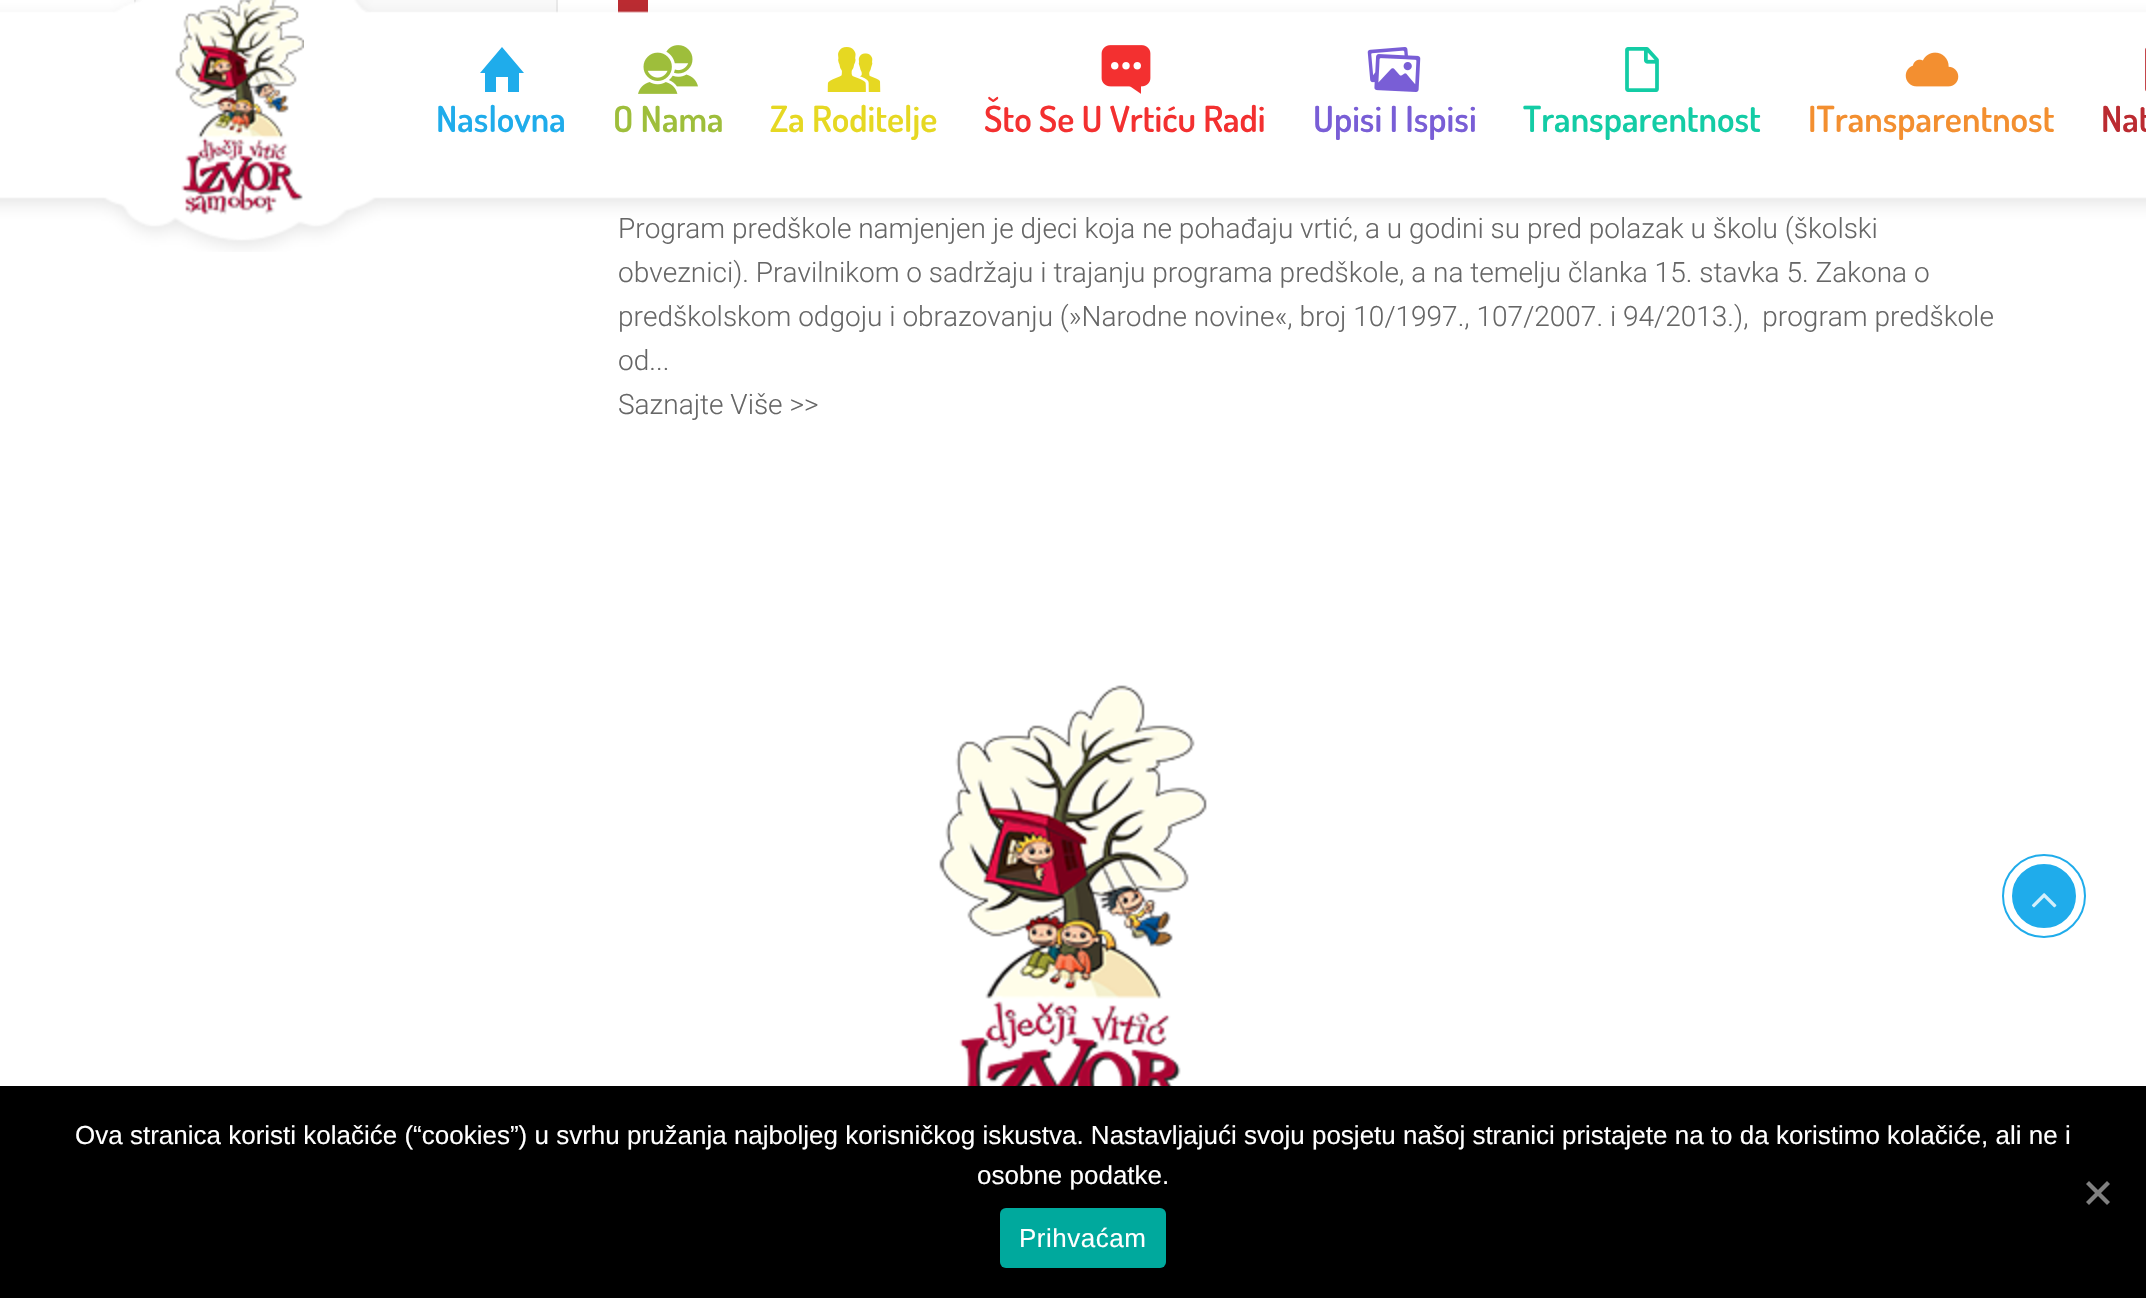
void draw(SkCanvas* c) {
SkPaint p;
p.setAntiAlias(true);
auto F=[&](const char* family, int weight, float size, bool italic = false){SkFontStyle style(weight, SkFontStyle::kNormal_Width,italic ? SkFontStyle::kItalic_Slant : SkFontStyle::kUpright_Slant);SkFont result(fontMgr->matchFamilyStyle(family, style), size);result.setSubpixel(true);return result;};
auto T=[&](const char* s, float x, float y, const SkFont& font){c->drawString(s, x, y, font, p);};
auto L=[&](const char* s, float x, float y, const SkFont& font, const SkPaint& ink, float letter, float word){std::vector<SkGlyphID> glyphs(font.countText(s, strlen(s), SkTextEncoding::kUTF8));std::vector<float> xs(glyphs.size());font.textToGlyphs(s, strlen(s), SkTextEncoding::kUTF8, glyphs);font.getXPos(glyphs, xs, x);float extra = 0;for (size_t i = 0; i < glyphs.size(); i++) {xs[i] += extra;extra += letter + word * (glyphs[i] == font.unicharToGlyph(' '));}c->drawTextBlob(SkTextBlob::MakeFromPosHGlyphs(glyphs, xs, y, font), 0, 0, ink);};
auto R=[&](float x, float y, float w, float h){c->drawRect(SkRect::MakeXYWH(x, y, w, h), p);};
auto Q=[&](float x, float y, float w, float h, float radius){c->drawRoundRect(SkRect::MakeXYWH(x, y, w, h), radius, radius, p);};
auto I=[&](const char* path, float x, float y, float w, float h){auto image = SkImages::DeferredFromEncodedData(SkData::MakeFromFileName(path));c->drawImageRect(image, SkRect::MakeXYWH(x, y, w, h), SkSamplingOptions());};
auto P=[&](const char* data, bool evenOdd = false){SkPath result = *SkParsePath::FromSVGString(data);if (evenOdd) result.setFillType(SkPathFillType::kEvenOdd);return result;};
c->clear(0xffffffff);
p.setColor(0xfff9f9f9);
R(136,0,420,13);
p.setColor(0xffe9e9e9);
R(556,0,2,13);
R(134,0,2,5);
p.setColor(0xffbb2b31);
R(618,0,30,13);
auto f1 = F("Roboto",300,28);
p.setColor(0xff666666);
T("Program predškole namjenjen je djeci koja ne pohađaju vrtić, a u godini su pred polazak u školu (školski",618,238,f1);
I("1.png",0,0,2146,252);
I("2.png",175,0,129,215);
p.setColor(0xff1faceb);
c->drawPath(P("M524 73h-5v19h-11v-15h-12v15h-11v-19h-5l22-26z"),p);
auto f2 = F("Dosis",600,36);
T("Naslovna",436,132,f2);
I("3.png",638,45,60,49);
p.setColor(0xff9ebe3b);
T("O Nama",613,132,f2);
I("4.png",827,47,54,45);
p.setColor(0xffe6d822);
T("Za Roditelje",770,132,f2);
I("5.png",1101,45,50,49);
p.setColor(0xfff33030);
T("Što Se U Vrtiću Radi",984,132,f2);
I("6.png",1367,47,54,45);
p.setColor(0xff795ed6);
T("Upisi I Ispisi",1313,132,f2);
I("7.png",1625,47,34,45);
p.setColor(0xff13cca5);
T("Transparentnost",1523,132,f2);
I("8.png",1905,52,54,35);
p.setColor(0xfff38f30);
T("ITransparentnost",1808,132,f2);
I("9.png",2145,47,1,45);
p.setColor(0xffbb2b31);
T("Nat",2101,132,f2);
p.setColor(0xff666666);
T("obveznici). Pravilnikom o sadržaju i trajanju programa predškole, a na temelju članka 15. stavka 5. Zakona o",618,282,f1);
T("predškolskom odgoju i obrazovanju (»Narodne novine«, broj 10/1997., 107/2007. i 94/2013.),  program predškole",618,326,f1);
T("od...",618,370,f1);
T("Saznajte Više >>",618,414,f1);
I("10.png",939,685,268,401);
p.setColor(0xff1faceb);
c->drawCircle(2044,896,31,p);
p.setStroke(true);
p.setStrokeWidth(2);
c->drawCircle(2044,896,31,p);
c->drawCircle(2044,896,41,p);
I("11.png",2031,893,26,15);
p.setStroke(false);
p.setColor(0xff000000);
R(0,1086,2146,212);
auto f3 = F("Liberation Sans",400,26);
p.setColor(0xffffffff);
T("Ova stranica koristi kolačiće (“cookies”) u svrhu pružanja najboljeg korisničkog iskustva. Nastavljajući svoju posjetu našoj stranici pristajete na to da koristimo kolačiće, ali ne i",75,1144,f3);
T("osobne podatke.",977,1184,f3);
p.setColor(0xff808080);
c->drawPath(P("M2107 1181l3 3l-21 21l-3-3z"),p);
c->drawPath(P("M2086 1184l3-3l21 21l-3 3z"),p);
p.setColor(0xff00a99d);
Q(1000,1208,166,60,6);
p.setColor(0xffffffff);
L("Prihvaćam",1019,1247,f3,p,.5,0);
}
